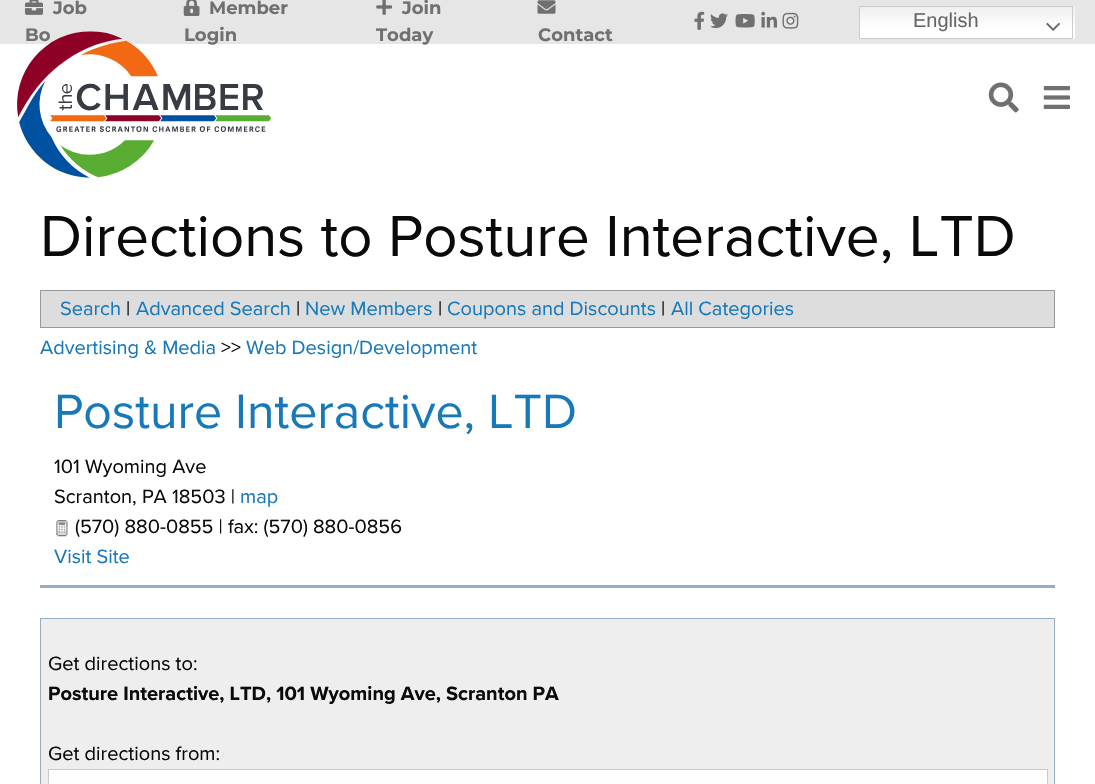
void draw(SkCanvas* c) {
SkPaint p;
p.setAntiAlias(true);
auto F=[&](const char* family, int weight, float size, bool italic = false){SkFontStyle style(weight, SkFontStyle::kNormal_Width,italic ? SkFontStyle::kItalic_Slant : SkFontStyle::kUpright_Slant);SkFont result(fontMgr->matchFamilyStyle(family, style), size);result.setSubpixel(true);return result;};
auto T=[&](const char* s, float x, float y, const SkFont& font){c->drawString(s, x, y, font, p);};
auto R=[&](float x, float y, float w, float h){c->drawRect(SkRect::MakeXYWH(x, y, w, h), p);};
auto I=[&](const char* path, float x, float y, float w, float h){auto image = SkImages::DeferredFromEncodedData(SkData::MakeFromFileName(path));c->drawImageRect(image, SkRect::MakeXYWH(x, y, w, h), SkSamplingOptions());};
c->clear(0xffffffff);
p.setColor(0xffe6e6e6);
R(0,0,1095,44);
I("1.png",25,0,18,15);
auto f1 = F("Montserrat",700,18);
p.setColor(0xff707070);
T("Job",53,14,f1);
T("Bo",25,41,f1);
I("2.png",183,0,17,16);
T("Member",209,14,f1);
T("Login",184,41,f1);
I("3.png",376,0,16,15);
T("Join",402,14,f1);
T("Today",376,41,f1);
I("4.png",537,0,19,14);
T("Contact",538,41,f1);
I("5.png",694,11,11,19);
I("6.png",710,13,18,16);
I("7.png",735,14,20,14);
I("8.png",761,11,16,17);
I("9.png",782,12,17,17);
{
const SkColor colors[] = {0xffefefef,0xffffffff};
const float stops[] = {0,.7};
const SkPoint ends[] = {{967,6.2}, {967,39}};
p.setShader(SkGradientShader::MakeLinear(ends, colors, stops, 2, SkTileMode::kClamp));
p.setAlpha(255);
}
R(860,6,215,33);
p.setStroke(true);
p.setStrokeWidth(1);
p.setShader(nullptr);
p.setColor(0xffcccccc);
c->drawRect(SkRect::MakeXYWH(859.5,6.5,213,32),p);
auto f2 = F("Liberation Sans",400,20);
p.setStroke(false);
p.setColor(0xff666666);
T("English",913,27,f2);
I("10.png",1046,22,14,9);
I("11.png",17,31,254,147);
I("12.png",988,82,31,31);
I("13.png",1043,86,27,23);
auto f3 = F("Proxima Nova",400,60);
p.setColor(0xff0a0a0a);
T("Directions to Posture Interactive, LTD",40,256,f3);
p.setColor(0xffdddddd);
c->drawRect(SkRect::MakeXYWH(40.5,290.5,1014,37),p);
p.setStroke(true);
p.setColor(0xff999999);
c->drawRect(SkRect::MakeXYWH(40.5,290.5,1014,37),p);
auto f4 = F("Proxima Nova",400,20);
p.setStroke(false);
p.setColor(0xff1779ba);
T("Search",60,315,f4);
p.setColor(0xff0a0a0a);
T("|",126,315,f4);
p.setColor(0xff1779ba);
T("Advanced Search",136,315,f4);
p.setColor(0xff0a0a0a);
T("|",296,315,f4);
p.setColor(0xff1779ba);
T("New Members",305,315,f4);
p.setColor(0xff0a0a0a);
T("|",438,315,f4);
p.setColor(0xff1779ba);
T("Coupons and Discounts",447,315,f4);
p.setColor(0xff0a0a0a);
T("|",661,315,f4);
p.setColor(0xff1779ba);
T("All Categories",671,315,f4);
T("Advertising & Media",40,354,f4);
p.setColor(0xff0a0a0a);
T(">>",221,354,f4);
p.setColor(0xff1779ba);
T("Web Design/Development",246,354,f4);
auto f5 = F("Proxima Nova",400,50);
T("Posture Interactive, LTD",54,428,f5);
p.setColor(0xff0a0a0a);
T("101 Wyoming Ave",54,473,f4);
T("Scranton, PA 18503 |",54,503,f4);
p.setColor(0xff1779ba);
T("map",240,503,f4);
I("14.png",56,520,12,17);
p.setColor(0xff0a0a0a);
T("(570) 880-0855 | fax: (570) 880-0856",75,533,f4);
p.setColor(0xff1779ba);
T("Visit Site",54,563,f4);
p.setColor(0xff96acc3);
R(40,585,1015,3);
p.setColor(0xffeeeeee);
c->drawRect(SkRect::MakeXYWH(40.5,618.5,1014,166),p);
p.setStroke(true);
p.setColor(0xff96acc3);
c->drawRect(SkRect::MakeXYWH(40.5,618.5,1014,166),p);
p.setStroke(false);
p.setColor(0xff0a0a0a);
T("Get directions to:",48,670,f4);
auto f6 = F("Proxima Nova",700,20);
T("Posture Interactive, LTD, 101 Wyoming Ave, Scranton PA",48,700,f6);
T("Get directions from:",48,760,f4);
p.setColor(0xfffefefe);
c->drawRect(SkRect::MakeXYWH(48.5,769.5,999,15),p);
p.setStroke(true);
p.setColor(0xffcacaca);
c->drawRect(SkRect::MakeXYWH(48.5,769.5,999,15),p);
}
